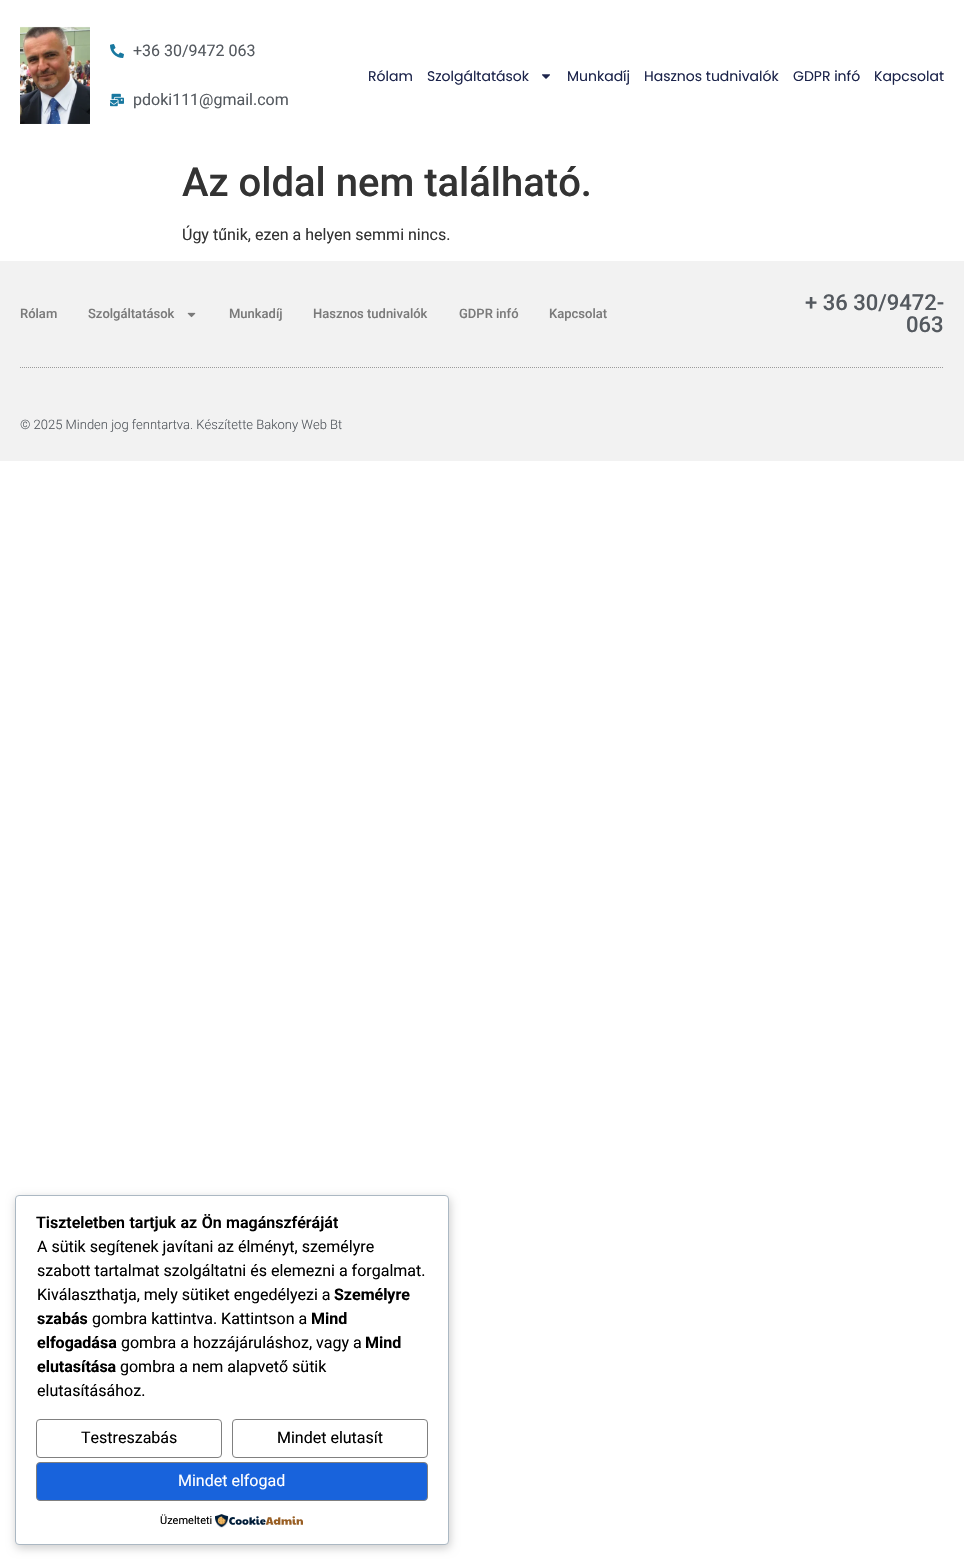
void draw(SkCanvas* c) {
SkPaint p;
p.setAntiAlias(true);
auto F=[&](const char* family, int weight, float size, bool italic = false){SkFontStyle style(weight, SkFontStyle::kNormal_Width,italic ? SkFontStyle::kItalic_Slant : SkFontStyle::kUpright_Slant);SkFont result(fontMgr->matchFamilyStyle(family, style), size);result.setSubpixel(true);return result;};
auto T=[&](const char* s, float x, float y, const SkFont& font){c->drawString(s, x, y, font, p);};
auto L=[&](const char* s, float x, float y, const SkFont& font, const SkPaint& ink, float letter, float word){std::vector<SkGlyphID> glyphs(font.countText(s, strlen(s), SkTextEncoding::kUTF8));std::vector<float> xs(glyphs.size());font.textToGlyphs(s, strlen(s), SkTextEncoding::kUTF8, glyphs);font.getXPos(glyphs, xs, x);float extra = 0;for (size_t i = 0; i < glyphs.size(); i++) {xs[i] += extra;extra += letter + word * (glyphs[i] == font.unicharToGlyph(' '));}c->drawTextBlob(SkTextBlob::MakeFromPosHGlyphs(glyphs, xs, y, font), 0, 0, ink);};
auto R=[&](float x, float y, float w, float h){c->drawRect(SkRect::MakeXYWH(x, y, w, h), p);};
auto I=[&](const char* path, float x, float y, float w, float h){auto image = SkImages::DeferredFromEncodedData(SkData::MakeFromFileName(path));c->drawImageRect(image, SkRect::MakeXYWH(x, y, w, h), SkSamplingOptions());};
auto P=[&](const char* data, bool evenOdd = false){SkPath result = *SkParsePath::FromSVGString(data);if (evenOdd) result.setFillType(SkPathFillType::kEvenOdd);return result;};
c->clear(0xffffffff);
I("1.png",20,26,70,98);
I("2.png",110,44,14,14);
auto f1 = F("Roboto",400,16);
p.setColor(0xff54595f);
T("+36 30/9472 063",133,56,f1);
I("3.png",110,93,14,14);
T("pdoki111@gmail.com",133,105,f1);
auto f2 = F("Poppins",400,14);
p.setColor(0xff1c244b);
T("Rólam",368,81,f2);
T("Szolgáltatások",427,81,f2);
I("4.png",542,74,8,5);
T("Munkadíj",567,81,f2);
T("Hasznos tudnivalók",644,81,f2);
T("GDPR infó",793,81,f2);
T("Kapcsolat",874,81,f2);
auto f3 = F("Roboto",500,40);
p.setColor(0xff333333);
T("Az oldal nem található.",182,196,f3);
T("Úgy tűnik, ezen a helyen semmi nincs.",182,240,f1);
p.setColor(0xfff2f2f2);
R(0,261,964,200);
p.setStroke(true);
p.setStrokeWidth(1);
p.setColor(0xff9b9b9b);
p.setPathEffect(SkDashPathEffect::Make({{1,1}}, 0));
c->drawPath(P("M20 367.5h924"),p);
p.setPathEffect(nullptr);
auto f4 = F("Roboto",500,13);
p.setStroke(false);
p.setColor(0xff7a7a7a);
T("Rólam",20,318,f4);
T("Szolgáltatások",88,318,f4);
I("5.png",187,312,9,6);
T("Munkadíj",229,318,f4);
T("Hasznos tudnivalók",313,318,f4);
T("GDPR infó",459,318,f4);
T("Kapcsolat",549,318,f4);
auto f5 = F("Roboto",500,22);
p.setColor(0xff54595f);
T("+ 36 30/9472-",805,310,f5);
T("063",906,332,f5);
auto f6 = F("Roboto",300,13);
T("© 2025 Minden jog fenntartva. Készítette Bakony Web Bt",20,429,f6);
p.setColor(0x33000000);
p.setMaskFilter(SkMaskFilter::MakeBlur(kNormal_SkBlurStyle, 5));
c->drawRoundRect(SkRect::MakeXYWH(16,1198,434,350),4,4,p);
p.setMaskFilter(nullptr);
p.setColor(0xffffffff);
c->drawRoundRect(SkRect::MakeXYWH(15.5,1195.5,433,349),3.5,3.5,p);
p.setStroke(true);
p.setColor(0xffabb8c3);
c->drawRoundRect(SkRect::MakeXYWH(15.5,1195.5,433,349),3.5,3.5,p);
auto f7 = F("Roboto",600,16);
p.setStroke(false);
p.setColor(0xff000000);
L("Tiszteletben tartjuk az Ön magánszféráját",36,1228,f7,p,0,.5);
T("A sütik segítenek javítani az élményt, személyre",37,1252,f1);
T("szabott tartalmat szolgáltatni és elemezni a forgalmat.",37,1276,f1);
T("Kiválaszthatja, mely sütiket engedélyezi a",37,1300,f1);
auto f8 = F("Roboto",700,16);
T("Személyre",334,1300,f8);
T("szabás",37,1324,f8);
T("gombra kattintva. Kattintson a",92,1324,f1);
T("Mind",311,1324,f8);
T("elfogadása",37,1348,f8);
T("gombra a hozzájáruláshoz, vagy a",121,1348,f1);
T("Mind",365,1348,f8);
T("elutasítása",37,1372,f8);
T("gombra a nem alapvető sütik",120,1372,f1);
T("elutasításához.",37,1396,f1);
p.setStroke(true);
p.setColor(0xff808080);
c->drawRoundRect(SkRect::MakeXYWH(36.5,1419.5,185,38),3.5,3.5,p);
p.setStroke(false);
p.setColor(0xff000000);
T("Testreszabás",81,1443,f1);
p.setStroke(true);
p.setColor(0xff808080);
c->drawRoundRect(SkRect::MakeXYWH(232.5,1419.5,195,38),3.5,3.5,p);
p.setStroke(false);
p.setColor(0xff000000);
T("Mindet elutasít",277,1443,f1);
p.setColor(0xff1863dc);
c->drawRoundRect(SkRect::MakeXYWH(36.5,1462.5,391,38),3.5,3.5,p);
p.setStroke(true);
p.setColor(0xff808080);
c->drawRoundRect(SkRect::MakeXYWH(36.5,1462.5,391,38),3.5,3.5,p);
p.setStroke(false);
p.setColor(0xffffffff);
T("Mindet elfogad",178,1486,f1);
auto f9 = F("Roboto",400,11);
p.setColor(0xff000000);
T("Üzemelteti",160,1524,f9);
I("6.png",215,1514,88,14);
}
